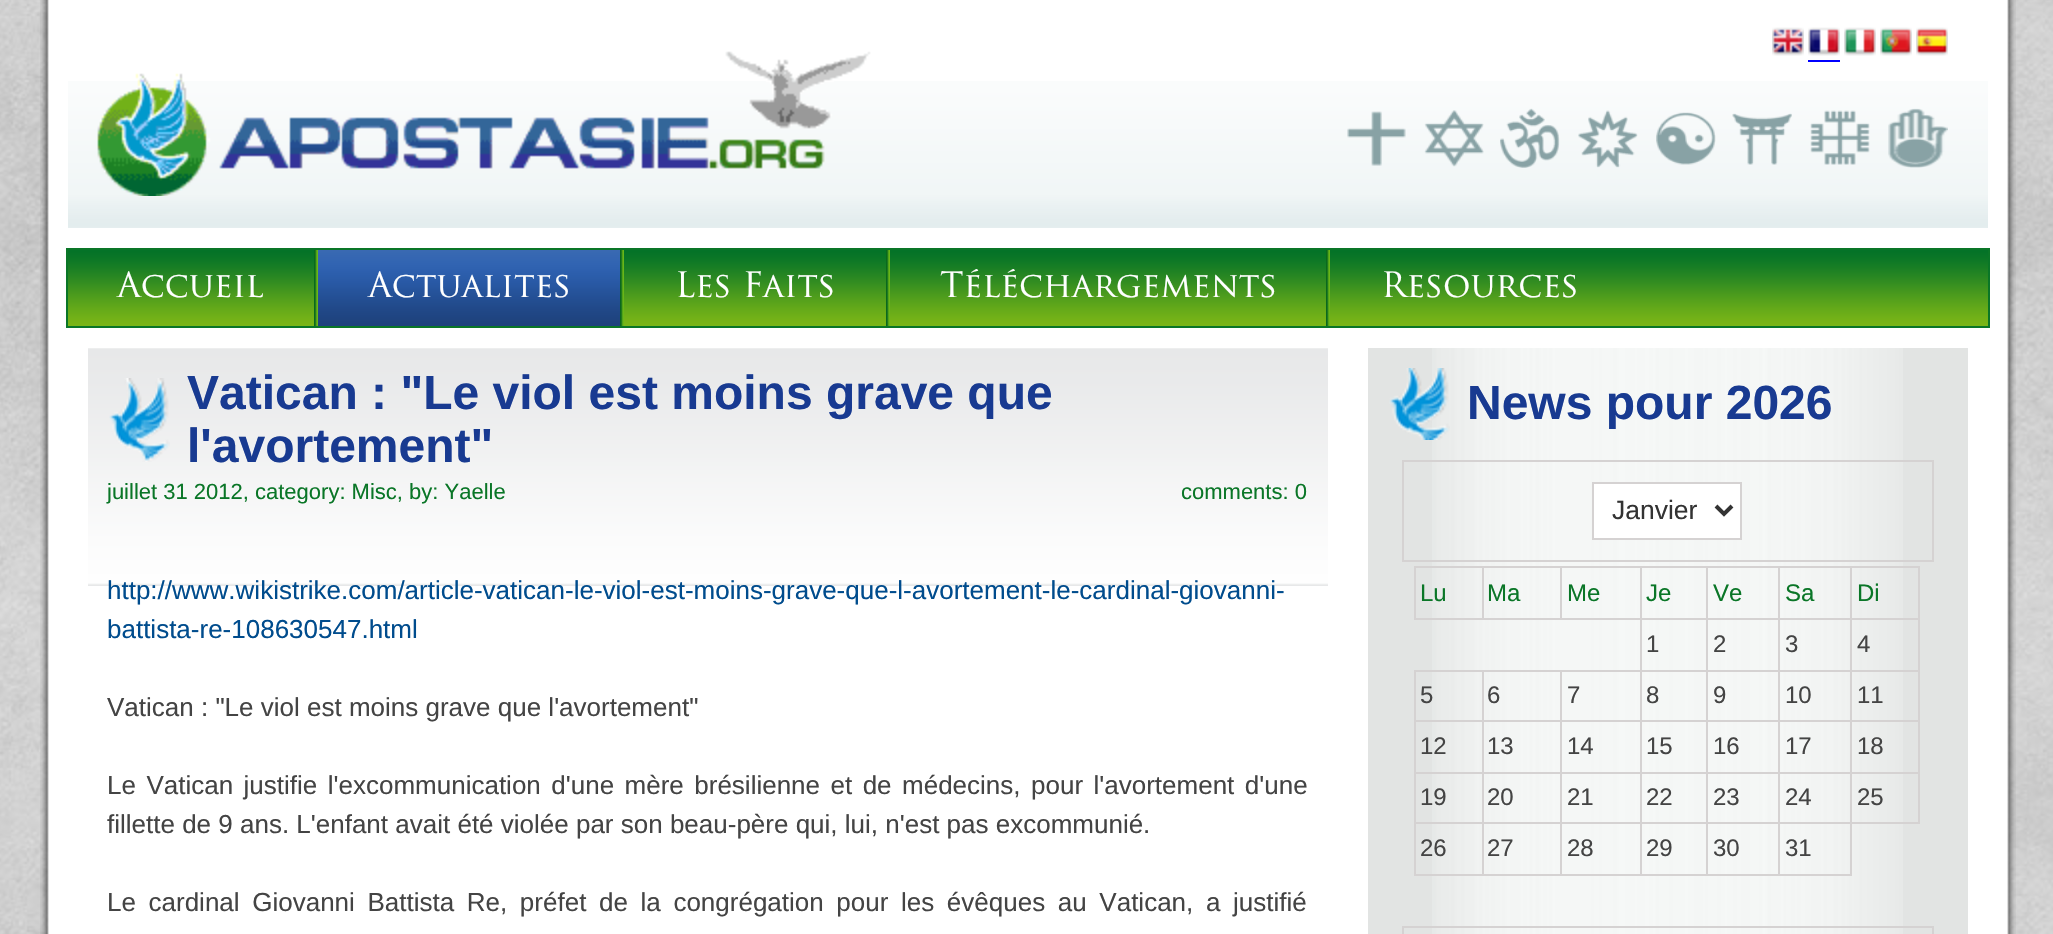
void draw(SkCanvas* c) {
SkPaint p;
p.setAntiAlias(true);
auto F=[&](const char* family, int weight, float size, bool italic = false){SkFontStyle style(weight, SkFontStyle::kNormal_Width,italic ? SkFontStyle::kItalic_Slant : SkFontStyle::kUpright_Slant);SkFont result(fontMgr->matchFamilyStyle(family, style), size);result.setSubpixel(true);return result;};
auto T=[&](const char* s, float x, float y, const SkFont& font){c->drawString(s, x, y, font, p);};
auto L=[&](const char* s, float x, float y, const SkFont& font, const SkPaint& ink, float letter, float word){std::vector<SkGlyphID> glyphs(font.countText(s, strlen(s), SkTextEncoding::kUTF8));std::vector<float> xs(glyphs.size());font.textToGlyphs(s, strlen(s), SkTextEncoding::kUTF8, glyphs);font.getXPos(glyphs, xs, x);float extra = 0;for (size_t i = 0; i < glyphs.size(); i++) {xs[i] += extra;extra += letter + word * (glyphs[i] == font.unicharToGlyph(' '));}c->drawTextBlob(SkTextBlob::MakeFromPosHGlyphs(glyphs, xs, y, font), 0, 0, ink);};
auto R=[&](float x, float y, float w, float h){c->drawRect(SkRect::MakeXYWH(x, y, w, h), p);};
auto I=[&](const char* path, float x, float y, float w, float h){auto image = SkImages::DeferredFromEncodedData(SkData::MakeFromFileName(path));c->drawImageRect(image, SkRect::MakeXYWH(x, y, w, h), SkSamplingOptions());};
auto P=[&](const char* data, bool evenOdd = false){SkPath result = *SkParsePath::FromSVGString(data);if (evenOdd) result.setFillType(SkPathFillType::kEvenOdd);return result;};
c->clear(0xffffffff);
I("1.png",0,0,2053,934);
I("2.png",40,0,1976,348);
I("3.png",68,81,1920,147);
I("4.png",97,51,774,145);
I("5.png",1772,27,32,29);
p.setColor(0xff0000ff);
R(1808,60,32,2);
I("6.png",1808,27,32,29);
I("7.png",1844,27,32,29);
I("8.png",1880,27,32,29);
I("9.png",1916,27,32,29);
I("10.png",1347,111,59,55);
I("11.png",1424,110,60,57);
I("12.png",1500,108,60,60);
I("13.png",1578,110,60,58);
I("14.png",1656,112,60,53);
I("15.png",1732,113,60,52);
I("16.png",1810,110,60,55);
I("17.png",1888,108,60,60);
I("18.png",68,250,1920,76);
p.setStroke(true);
p.setStrokeWidth(2);
p.setColor(0xff0a7627);
c->drawRect(SkRect::MakeXYWH(67,249,1922,78),p);
auto f1 = F("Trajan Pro",400,40);
p.setStroke(false);
p.setColor(0xffffffff);
T("Accueil",117,297,f1);
I("19.png",314,250,4,76);
I("20.png",318,250,302,76);
T("Actualites",368,297,f1);
I("19.png",620,250,4,76);
T("Les Faits",675,297,f1);
I("19.png",886,250,4,76);
T("Téléchargements",940,297,f1);
I("19.png",1326,250,4,76);
T("Resources",1381,297,f1);
I("21.png",40,348,1976,586);
I("22.png",88,348,1240,238);
I("23.png",109,378,61,84);
auto f2 = F("Liberation Sans",700,48);
p.setColor(0xff183a91);
T("Vatican : \"Le viol est moins grave que",187,409,f2);
T("l'avortement\"",187,462,f2);
auto f3 = F("Liberation Sans",400,22);
p.setColor(0xff0a7627);
T("juillet 31 2012, category: Misc, by: Yaelle",107,499,f3);
T("comments: 0",1181,499,f3);
auto f4 = F("Liberation Sans",400,26);
p.setColor(0xff004c8d);
T("http://www.wikistrike.com/article-vatican-le-viol-est-moins-grave-que-l-avortement-le-cardinal-giovanni-",107,599,f4);
T("battista-re-108630547.html",107,638,f4);
p.setColor(0xff444444);
T("Vatican : \"Le viol est moins grave que l'avortement\"",107,716,f4);
L("Le Vatican justifie l'excommunication d'une mère brésilienne et de médecins, pour l'avortement d'une",107,794,f4,p,0,3.25);
T("fillette de 9 ans. L'enfant avait été violée par son beau-père qui, lui, n'est pas excommunié.",107,833,f4);
L("Le cardinal Giovanni Battista Re, préfet de la congrégation pour les évêques au Vatican, a justifié",107,911,f4,p,0,5.4);
p.setColor(0xffe2e4e3);
R(1368,348,600,586);
I("24.png",1432,348,471,586);
I("25.png",1389,368,61,72);
p.setColor(0xff183a91);
T("News pour 2026",1467,419,f2);
p.setStroke(true);
p.setColor(0xffd5d2d2);
c->drawRect(SkRect::MakeXYWH(1403,461,530,100),p);
p.setStroke(false);
p.setColor(0xffffffff);
c->drawRect(SkRect::MakeXYWH(1593,483,148,56),p);
p.setStroke(true);
p.setColor(0xffd5d2d2);
c->drawRect(SkRect::MakeXYWH(1593,483,148,56),p);
p.setStrokeWidth(4);
p.setColor(0xff333333);
c->drawPath(P("M1716 506l8 8l8-8"),p);
auto f5 = F("Liberation Sans",400,26.5);
p.setStroke(false);
T("Janvier",1612,519,f5);
p.setColor(0xffd5d2d2);
R(1850,566,70,2);
R(1850,618,70,2);
R(1850,670,70,2);
R(1850,720,70,2);
R(1850,772,70,2);
R(1918,772,2,52);
R(1778,822,74,2);
R(1850,822,2,54);
R(1850,822,70,2);
R(1850,772,2,52);
R(1778,772,74,2);
R(1850,720,2,54);
R(1778,720,74,2);
R(1850,670,2,52);
R(1778,670,74,2);
R(1850,618,2,54);
R(1778,618,74,2);
R(1850,566,2,54);
R(1778,566,74,2);
R(1778,874,74,2);
R(1778,822,2,54);
R(1706,822,74,2);
R(1778,772,2,52);
R(1706,772,74,2);
R(1778,720,2,54);
R(1706,720,74,2);
R(1778,670,2,52);
R(1706,670,74,2);
R(1778,618,2,54);
R(1706,618,74,2);
R(1778,566,2,54);
R(1706,566,74,2);
R(1706,874,74,2);
R(1706,822,2,54);
R(1640,822,68,2);
R(1706,772,2,52);
R(1640,772,68,2);
R(1706,720,2,54);
R(1640,720,68,2);
R(1706,670,2,52);
R(1640,670,68,2);
R(1706,618,2,54);
R(1640,618,68,2);
R(1706,566,2,54);
R(1640,566,68,2);
R(1640,874,68,2);
R(1640,822,2,54);
R(1560,822,82,2);
R(1640,772,2,52);
R(1560,772,82,2);
R(1640,720,2,54);
R(1560,720,82,2);
R(1640,670,2,52);
R(1560,670,82,2);
R(1640,618,2,54);
R(1640,566,2,54);
R(1560,566,82,2);
R(1560,618,82,2);
R(1560,566,2,54);
R(1482,566,80,2);
R(1482,618,80,2);
R(1482,566,2,54);
R(1414,566,70,2);
R(1414,618,70,2);
R(1414,566,2,54);
auto f6 = F("Liberation Sans",400,24);
p.setColor(0xff0a7627);
T("Lu",1420,601,f6);
T("Ma",1487,601,f6);
T("Me",1567,601,f6);
T("Je",1646,601,f6);
T("Ve",1713,601,f6);
T("Sa",1785,601,f6);
p.setColor(0xffd5d2d2);
R(1918,720,2,54);
R(1918,670,2,52);
R(1918,618,2,54);
R(1918,566,2,54);
p.setColor(0xff0a7627);
T("Di",1857,601,f6);
p.setColor(0xff444444);
T("1",1646,652,f6);
T("2",1713,652,f6);
T("3",1785,652,f6);
T("4",1857,652,f6);
p.setColor(0xffd5d2d2);
R(1560,874,82,2);
R(1560,822,2,54);
R(1482,822,80,2);
R(1560,772,2,52);
R(1482,772,80,2);
R(1560,720,2,54);
R(1482,720,80,2);
R(1560,670,2,52);
R(1482,670,80,2);
R(1482,874,80,2);
R(1482,822,2,54);
R(1414,822,70,2);
R(1482,772,2,52);
R(1414,772,70,2);
R(1482,720,2,54);
R(1414,720,70,2);
R(1482,670,2,52);
R(1414,670,70,2);
R(1414,874,70,2);
R(1414,822,2,54);
R(1414,772,2,52);
R(1414,720,2,54);
R(1414,670,2,52);
p.setColor(0xff444444);
T("5",1420,703,f6);
T("6",1487,703,f6);
T("7",1567,703,f6);
T("8",1646,703,f6);
T("9",1713,703,f6);
T("10",1785,703,f6);
T("11",1857,703,f6);
T("12",1420,754,f6);
T("13",1487,754,f6);
T("14",1567,754,f6);
T("15",1646,754,f6);
T("16",1713,754,f6);
T("17",1785,754,f6);
T("18",1857,754,f6);
T("19",1420,805,f6);
T("20",1487,805,f6);
T("21",1567,805,f6);
T("22",1646,805,f6);
T("23",1713,805,f6);
T("24",1785,805,f6);
T("25",1857,805,f6);
T("26",1420,856,f6);
T("27",1487,856,f6);
T("28",1567,856,f6);
T("29",1646,856,f6);
T("30",1713,856,f6);
T("31",1785,856,f6);
p.setStroke(true);
p.setStrokeWidth(2);
p.setColor(0xffd5d2d2);
c->drawRect(SkRect::MakeXYWH(1403,927,530,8),p);
}
